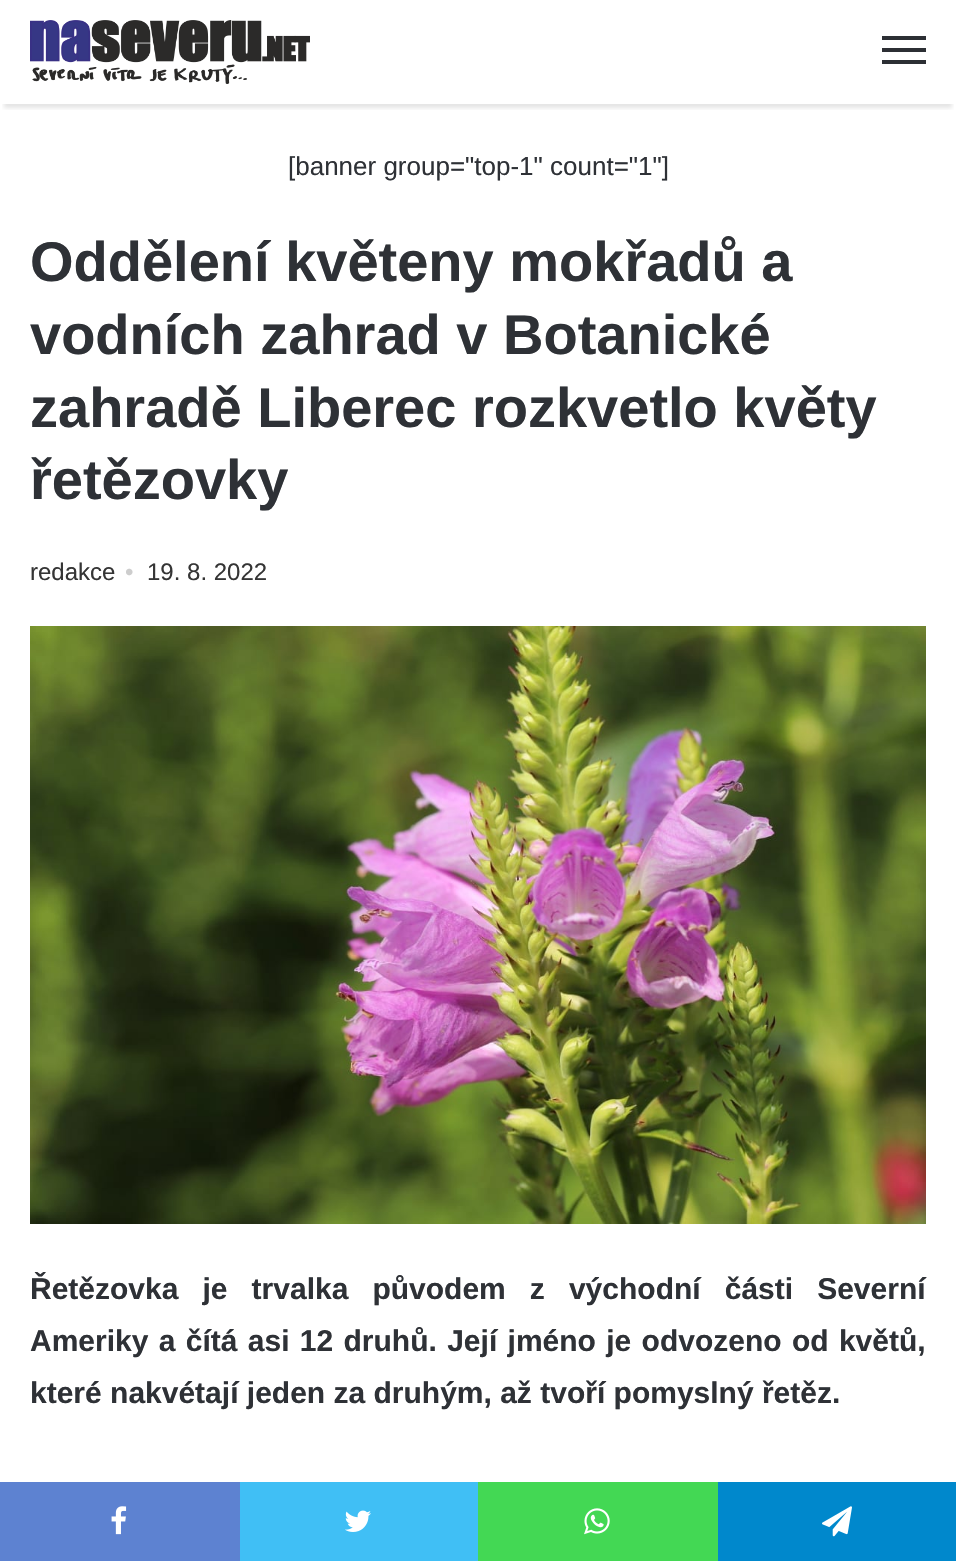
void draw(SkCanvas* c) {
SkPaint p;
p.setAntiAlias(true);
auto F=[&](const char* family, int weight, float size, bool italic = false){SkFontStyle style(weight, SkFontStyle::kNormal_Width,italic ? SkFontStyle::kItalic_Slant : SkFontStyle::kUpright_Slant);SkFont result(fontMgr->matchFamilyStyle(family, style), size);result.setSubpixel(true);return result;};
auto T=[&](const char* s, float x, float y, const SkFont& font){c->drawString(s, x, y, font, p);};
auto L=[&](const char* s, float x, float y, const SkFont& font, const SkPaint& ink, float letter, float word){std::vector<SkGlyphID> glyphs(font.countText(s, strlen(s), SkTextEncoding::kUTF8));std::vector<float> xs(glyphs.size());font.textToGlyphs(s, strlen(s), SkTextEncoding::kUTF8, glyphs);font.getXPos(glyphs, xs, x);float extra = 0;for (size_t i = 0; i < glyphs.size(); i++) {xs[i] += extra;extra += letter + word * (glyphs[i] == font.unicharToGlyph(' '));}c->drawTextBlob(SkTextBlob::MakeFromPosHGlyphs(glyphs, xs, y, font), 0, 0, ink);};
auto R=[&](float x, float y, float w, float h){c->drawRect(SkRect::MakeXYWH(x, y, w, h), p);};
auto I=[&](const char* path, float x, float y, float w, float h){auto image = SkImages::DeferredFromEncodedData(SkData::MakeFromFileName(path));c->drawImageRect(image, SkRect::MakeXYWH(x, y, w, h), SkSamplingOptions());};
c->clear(0xffffffff);
c->save();
c->clipRect(SkRect::MakeXYWH(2,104,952,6));
p.setColor(0x1a000000);
p.setMaskFilter(SkMaskFilter::MakeBlur(kNormal_SkBlurStyle, 2));
c->drawRect(SkRect::MakeXYWH(4,12,948,96),p);
p.setMaskFilter(nullptr);
c->restore();
I("1.png",30,20,280,64);
p.setColor(0xff2c2f34);
R(882,48,44,4);
R(882,36,44,4);
R(882,60,44,4);
auto f1 = F("Liberation Sans",400,26);
p.setColor(0xff2e3136);
T("[banner group=\"top-1\" count=\"1\"]",288,175,f1);
auto f2 = F("Liberation Sans",700,56);
T("Oddělení květeny mokřadů a",30,281,f2);
T("vodních zahrad v Botanické",30,354,f2);
T("zahradě Liberec rozkvetlo květy",30,427,f2);
T("řetězovky",30,499,f2);
auto f3 = F("Liberation Sans",400,24);
p.setColor(0xff353535);
T("redakce",30,580,f3);
p.setColor(0xffcdcdcd);
T("•",125,580,f3);
p.setColor(0xff353535);
T("19. 8. 2022",147,580,f3);
I("2.png",30,626,896,598);
auto f4 = F("Liberation Sans",700,30);
p.setColor(0xff2e3136);
L("Řetězovka je trvalka původem z východní části Severní",30,1299,f4,p,0,15.75);
L("Ameriky a čítá asi 12 druhů. Její jméno je odvozeno od květů,",30,1351,f4,p,0,2);
T("které nakvétají jeden za druhým, až tvoří pomyslný řetěz.",30,1403,f4);
p.setColor(0xff5d82d1);
R(0,1482,240,79);
I("3.png",111,1506,16,29);
p.setColor(0xff40bff5);
R(240,1482,238,79);
I("4.png",345,1510,26,22);
p.setColor(0xff43d854);
R(478,1482,240,79);
I("5.png",584,1508,26,27);
p.setColor(0xff0088cc);
R(718,1482,238,79);
I("6.png",822,1506,30,31);
}
